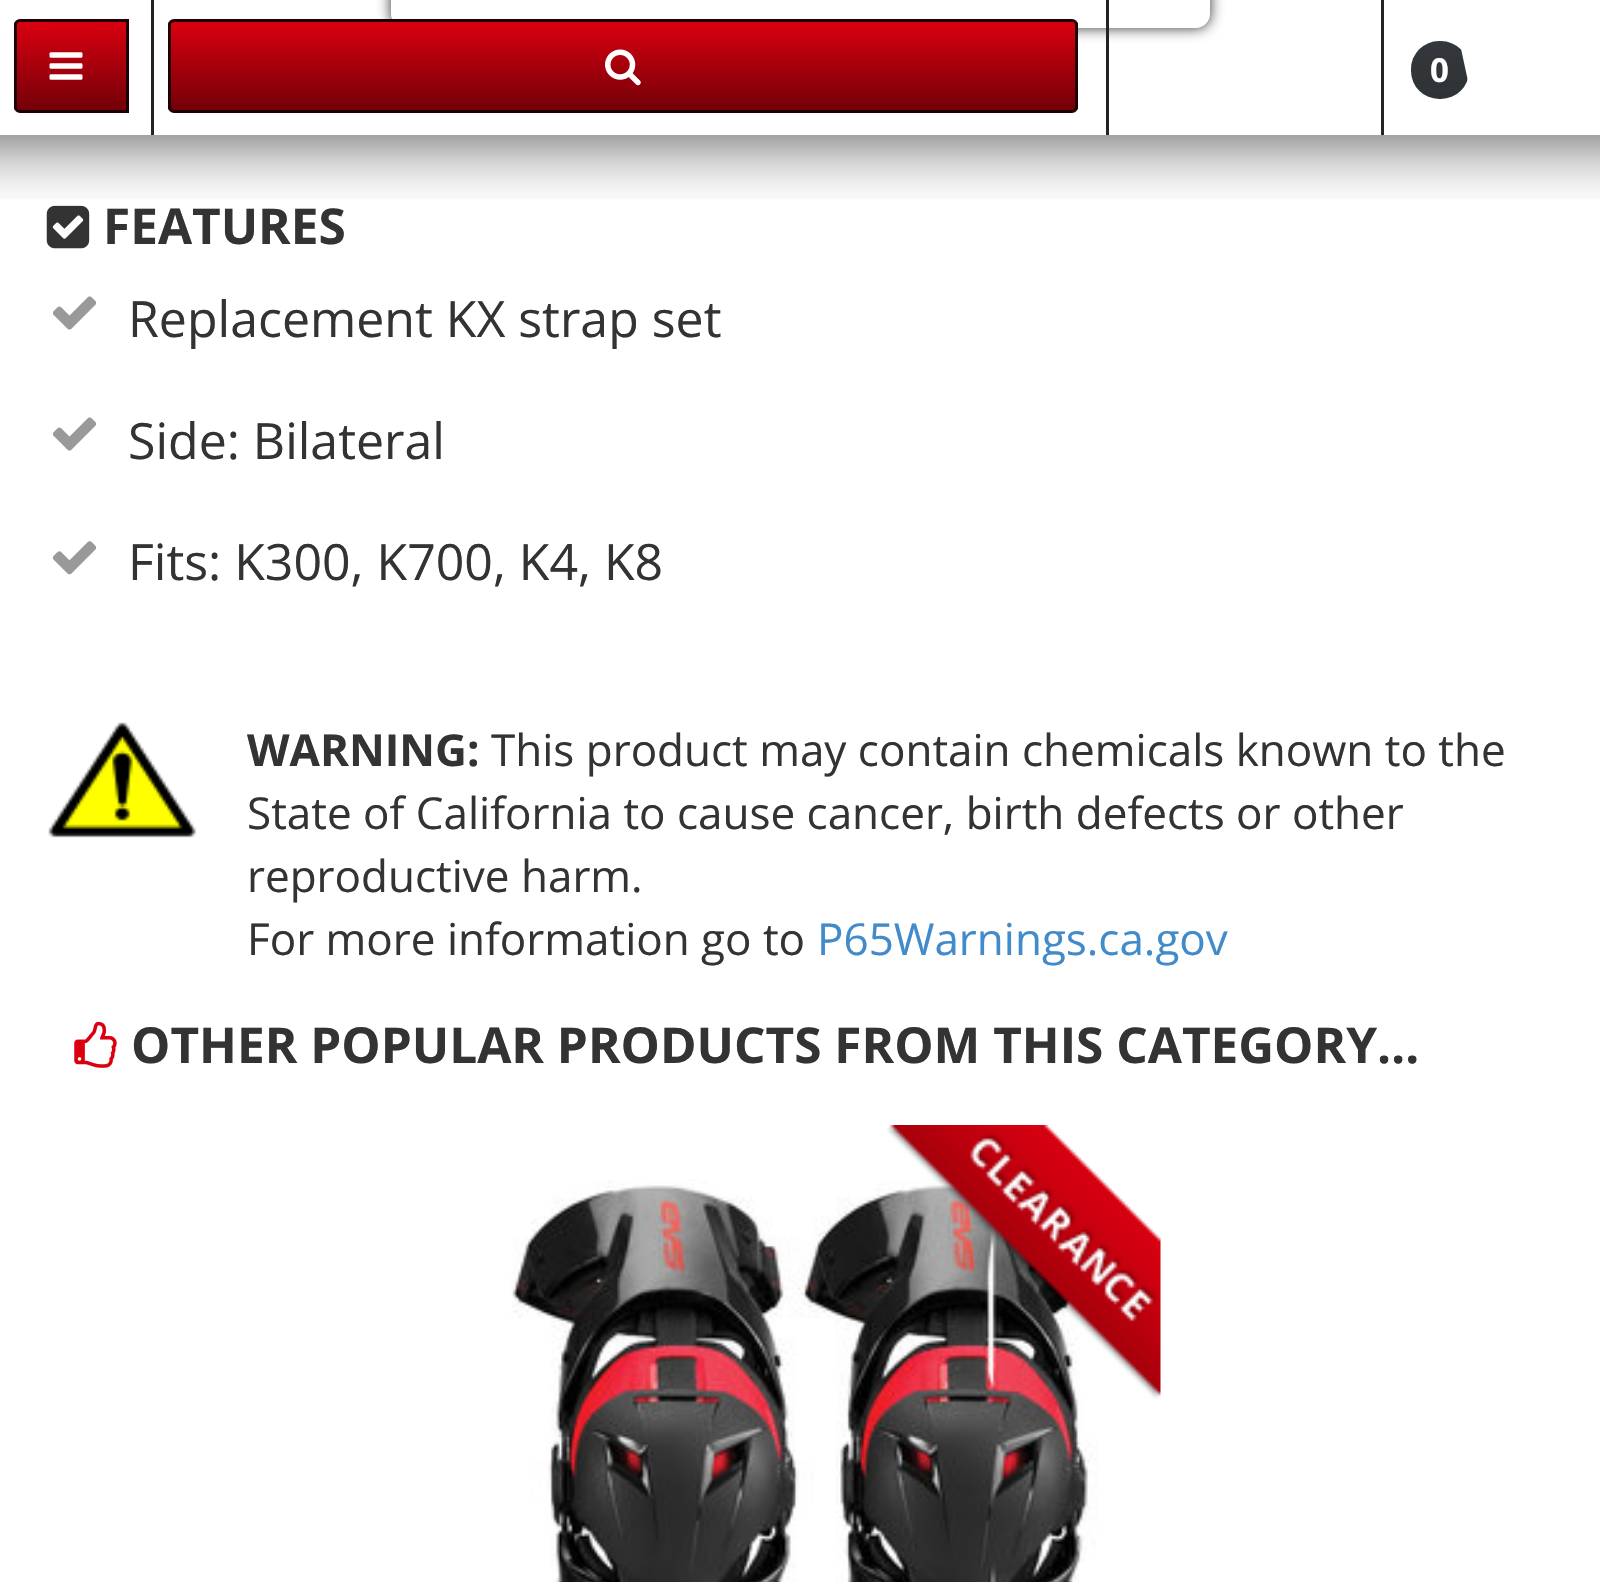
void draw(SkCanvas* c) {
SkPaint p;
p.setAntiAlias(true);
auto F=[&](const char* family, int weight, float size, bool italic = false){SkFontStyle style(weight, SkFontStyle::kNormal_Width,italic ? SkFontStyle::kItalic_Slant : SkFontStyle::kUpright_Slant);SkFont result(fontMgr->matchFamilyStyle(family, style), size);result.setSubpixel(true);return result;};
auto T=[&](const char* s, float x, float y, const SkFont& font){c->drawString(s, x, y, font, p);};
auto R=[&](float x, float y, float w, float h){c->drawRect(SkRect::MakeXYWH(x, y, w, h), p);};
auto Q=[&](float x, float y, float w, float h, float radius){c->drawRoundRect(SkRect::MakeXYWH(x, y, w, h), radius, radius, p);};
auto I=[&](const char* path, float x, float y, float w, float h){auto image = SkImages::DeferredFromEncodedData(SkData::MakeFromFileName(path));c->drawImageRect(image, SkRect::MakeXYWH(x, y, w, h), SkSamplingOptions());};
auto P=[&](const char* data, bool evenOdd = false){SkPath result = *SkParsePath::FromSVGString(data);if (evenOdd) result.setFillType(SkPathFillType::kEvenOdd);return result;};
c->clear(0xffffffff);
c->save();
c->clipPath(P("M20 19h109v94h-109c-3.5 0-6-2.5-6-6v-82c0-3.5 2.5-6 6-6z"),true);
{
const SkColor colors[] = {0xffda0010,0xff720008};
const float stops[] = {0,1};
const SkPoint ends[] = {{71,22}, {72,110}};
p.setShader(SkGradientShader::MakeLinear(ends, colors, stops, 2, SkTileMode::kClamp));
p.setAlpha(255);
}
R(14,22,112,88);
c->restore();
p.setStroke(true);
p.setStrokeWidth(3);
p.setShader(nullptr);
p.setColor(0xff1f0002);
c->drawPath(P("M20 20.5h107.5v91h-107.5c-2.5 0-4.5-2-4.5-4.5v-82c0-2.5 2-4.5 4.5-4.5z"),p);
I("1.png",49,52,34,28);
p.setStroke(false);
p.setColor(0xff212325);
R(151,0,3,135);
c->save();
c->clipPath(P("M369 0h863v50h-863zm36-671h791c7.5 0 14 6.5 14 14v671c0 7.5-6.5 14-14 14h-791c-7.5 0-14-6.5-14-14v-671c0-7.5 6.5-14 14-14z",true),true);
p.setColor(0xff333333);
p.setMaskFilter(SkMaskFilter::MakeBlur(kNormal_SkBlurStyle, 7));
c->drawRoundRect(SkRect::MakeXYWH(391,-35,819,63),14,14,p);
p.setMaskFilter(nullptr);
c->restore();
c->save();
c->clipPath(P("M174 19h898c3.5 0 6 2.5 6 6v82c0 3.5-2.5 6-6 6h-898c-3.5 0-6-2.5-6-6v-82c0-3.5 2.5-6 6-6z"),true);
{
const SkColor colors[] = {0xffda0010,0xff720008};
const float stops[] = {0,1};
const SkPoint ends[] = {{623,22}, {623,110}};
p.setShader(SkGradientShader::MakeLinear(ends, colors, stops, 2, SkTileMode::kClamp));
p.setAlpha(255);
}
R(168,22,910,88);
c->restore();
p.setStroke(true);
p.setShader(nullptr);
p.setColor(0xff1f0002);
c->drawRoundRect(SkRect::MakeXYWH(169.5,20.5,907,91),4.5,4.5,p);
I("2.png",605,49,36,37);
p.setStroke(false);
p.setColor(0xff212325);
R(1106,0,3,135);
R(1381,0,3,135);
{
const SkColor colors[] = {0xff34373b,0xff2e3335};
const float stops[] = {0,1};
const SkPoint ends[] = {{1440,41}, {1440,99}};
p.setShader(SkGradientShader::MakeLinear(ends, colors, stops, 2, SkTileMode::kClamp));
p.setAlpha(255);
}
Q(1411,41,58,58,28);
auto f1 = F("Open Sans",700,33);
p.setShader(nullptr);
p.setColor(0xffffffff);
T("0",1430,82,f1);
I("3.png",1461,49,8,32);
I("4.png",0,135,1600,64);
I("5.png",46,205,44,44);
auto f2 = F("Open Sans",700,49.5);
p.setColor(0xff333333);
T("FEATURES",103,244,f2);
I("6.png",53,296,44,34);
auto f3 = F("Open Sans",400,50);
T("Replacement KX strap set",128,337,f3);
I("6.png",53,417,44,34);
T("Side: Bilateral",128,459,f3);
I("7.png",52,541,45,34);
T("Fits: K300, K700, K4, K8",128,580,f3);
I("8.png",48,722,149,116);
auto f4 = F("Open Sans",700,44);
T("WARNING:",247,766,f4);
auto f5 = F("Open Sans",400,44);
T("This product may contain chemicals known to the",491,766,f5);
T("State of California to cause cancer, birth defects or other",247,829,f5);
T("reproductive harm.",247,892,f5);
T("For more information go to",247,955,f5);
p.setColor(0xff428bca);
T("P65Warnings.ca.gov",817,955,f5);
I("9.png",74,1021,43,47);
p.setColor(0xff333333);
T("OTHER POPULAR PRODUCTS FROM THIS CATEGORY…",131,1063,f2);
I("11.png",511,1179,587,403);
I("10.png",887,1125,274,275);
}
